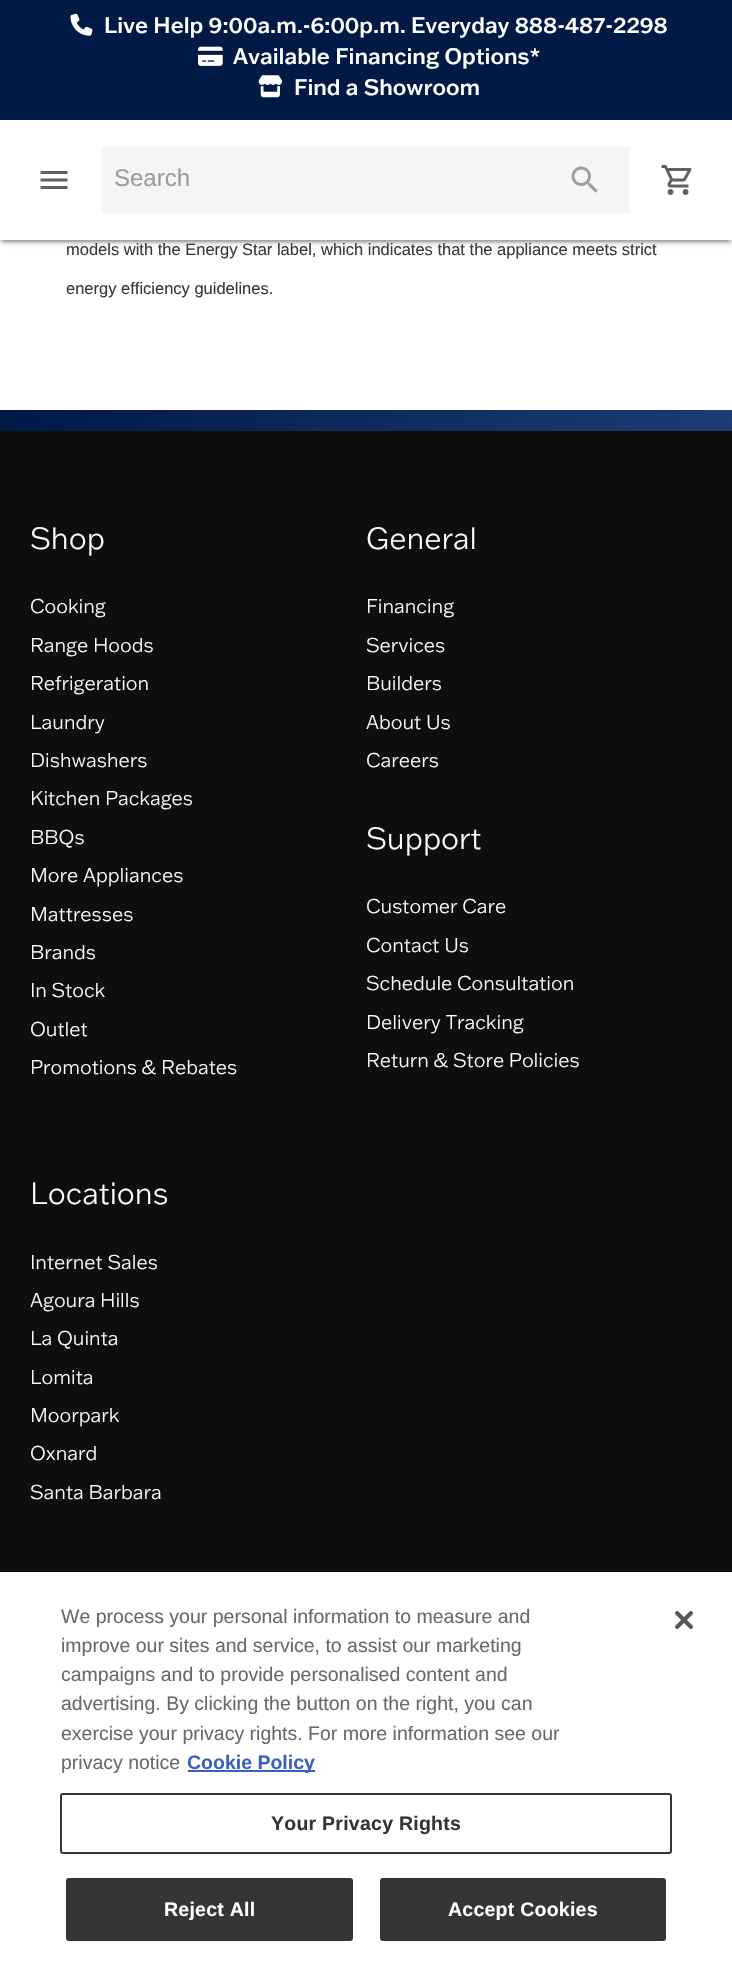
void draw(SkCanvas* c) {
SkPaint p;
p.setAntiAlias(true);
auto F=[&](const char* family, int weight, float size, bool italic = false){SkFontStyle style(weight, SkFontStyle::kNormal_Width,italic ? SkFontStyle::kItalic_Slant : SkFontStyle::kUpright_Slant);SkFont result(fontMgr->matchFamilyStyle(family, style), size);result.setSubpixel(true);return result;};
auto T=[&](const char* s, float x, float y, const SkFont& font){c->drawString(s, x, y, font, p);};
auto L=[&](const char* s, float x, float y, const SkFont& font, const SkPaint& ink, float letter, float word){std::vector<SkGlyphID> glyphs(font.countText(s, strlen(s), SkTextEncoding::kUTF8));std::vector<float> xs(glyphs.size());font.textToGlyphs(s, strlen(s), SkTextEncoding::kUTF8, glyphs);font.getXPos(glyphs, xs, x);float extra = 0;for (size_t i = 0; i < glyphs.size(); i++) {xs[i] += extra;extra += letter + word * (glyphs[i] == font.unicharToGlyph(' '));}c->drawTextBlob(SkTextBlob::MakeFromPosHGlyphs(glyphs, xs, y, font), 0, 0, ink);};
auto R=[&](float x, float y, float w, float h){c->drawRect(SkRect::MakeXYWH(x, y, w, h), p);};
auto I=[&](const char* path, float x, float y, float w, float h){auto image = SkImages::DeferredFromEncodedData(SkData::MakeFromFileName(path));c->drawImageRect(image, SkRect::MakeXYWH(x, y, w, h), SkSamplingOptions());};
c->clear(0xffffffff);
p.setColor(0x1f000000);
p.setMaskFilter(SkMaskFilter::MakeBlur(kNormal_SkBlurStyle, 4));
c->drawRect(SkRect::MakeXYWH(0,2,732,240),p);
p.setMaskFilter(nullptr);
p.setColor(0x24000000);
p.setMaskFilter(SkMaskFilter::MakeBlur(kNormal_SkBlurStyle, 1.5));
c->drawRect(SkRect::MakeXYWH(0,3,732,240),p);
p.setMaskFilter(nullptr);
p.setColor(0x33000000);
p.setMaskFilter(SkMaskFilter::MakeBlur(kNormal_SkBlurStyle, 1));
c->drawRect(SkRect::MakeXYWH(3,8,726,234),p);
p.setMaskFilter(nullptr);
p.setColor(0xffffffff);
R(0,120,732,120);
p.setColor(0xff001945);
R(0,0,732,120);
I("1.png",70,13,23,23);
auto f1 = F("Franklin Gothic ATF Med",500,21.95);
p.setColor(0xffffffff);
T("Live Help 9:00a.m.-6:00p.m. Everyday 888-487-2298",104,33,f1);
I("2.png",198,46,25,20);
T("Available Financing Options*",233,64,f1);
I("3.png",258,75,24,23);
T("Find a Showroom",294,95,f1);
I("4.png",40,171,28,18);
p.setColor(0xfff5f5f5);
R(102,147,528,66);
auto f2 = F("Liberation Sans",400,24);
p.setColor(0xff9c9c9c);
T("Search",114,186,f2);
I("5.png",571,166,27,27);
I("6.png",661,165,31,30);
auto f3 = F("Liberation Sans",400,16.5);
p.setColor(0xff373a3c);
T("models with the Energy Star label, which indicates that the appliance meets strict",66,255,f3);
T("energy efficiency guidelines.",66,294,f3);
{
const SkColor colors[] = {0xff001945,0xff1d3c74};
const float stops[] = {0,1};
const SkPoint ends[] = {{0,420}, {732,420}};
p.setShader(SkGradientShader::MakeLinear(ends, colors, stops, 2, SkTileMode::kClamp));
p.setAlpha(255);
}
R(0,410,732,21);
p.setShader(nullptr);
p.setColor(0xff0f0e0e);
R(0,431,732,1141);
auto f4 = F("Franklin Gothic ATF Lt",300,30);
p.setColor(0xffffffff);
T("Shop",30,549,f4);
auto f5 = F("Franklin Gothic ATF Lt",300,19.5);
T("Cooking",30,613,f5);
T("Range Hoods",30,652,f5);
T("Refrigeration",30,690,f5);
T("Laundry",30,729,f5);
T("Dishwashers",30,767,f5);
T("Kitchen Packages",30,805,f5);
T("BBQs",30,844,f5);
T("More Appliances",30,882,f5);
T("Mattresses",30,921,f5);
T("Brands",30,959,f5);
T("In Stock",30,997,f5);
T("Outlet",30,1036,f5);
T("Promotions & Rebates",30,1074,f5);
T("General",366,549,f4);
T("Financing",366,613,f5);
T("Services",366,652,f5);
T("Builders",366,690,f5);
T("About Us",366,729,f5);
T("Careers",366,767,f5);
T("Support",366,849,f4);
T("Customer Care",366,913,f5);
T("Contact Us",366,952,f5);
T("Schedule Consultation",366,990,f5);
T("Delivery Tracking",366,1029,f5);
T("Return & Store Policies",366,1067,f5);
T("Locations",30,1204,f4);
T("Internet Sales",30,1269,f5);
T("Agoura Hills",30,1307,f5);
T("La Quinta",30,1345,f5);
T("Lomita",30,1384,f5);
T("Moorpark",30,1422,f5);
T("Oxnard",30,1460,f5);
T("Santa Barbara",30,1499,f5);
auto f6 = F("Liberation Sans",400,19.5);
p.setColor(0xff696969);
T("We process your personal information to measure and",61,1623,f6);
T("improve our sites and service, to assist our marketing",61,1652,f6);
T("campaigns and to provide personalised content and",61,1681,f6);
T("advertising. By clicking the button on the right, you can",61,1710,f6);
T("exercise your privacy rights. For more information see our",61,1740,f6);
T("privacy notice",61,1769,f6);
p.setColor(0xff3860be);
R(188,1770,127,2);
auto f7 = F("Liberation Sans",700,19.5);
T("Cookie Policy",187,1769,f7);
p.setStroke(true);
p.setStrokeWidth(2);
p.setColor(0xff353535);
c->drawRoundRect(SkRect::MakeXYWH(61,1794,610,59),2,2,p);
p.setStroke(false);
L("Your Privacy Rights",271,1830,f7,p,.25,0);
c->drawRoundRect(SkRect::MakeXYWH(67,1879,285,61),2,2,p);
p.setStroke(true);
c->drawRoundRect(SkRect::MakeXYWH(67,1879,285,61),2,2,p);
p.setStroke(false);
p.setColor(0xffffffff);
L("Reject All",164,1916,f7,p,.25,0);
p.setColor(0xff353535);
c->drawRoundRect(SkRect::MakeXYWH(381,1879,284,61),2,2,p);
p.setStroke(true);
c->drawRoundRect(SkRect::MakeXYWH(381,1879,284,61),2,2,p);
p.setStroke(false);
p.setColor(0xffffffff);
L("Accept Cookies",448,1916,f7,p,.25,0);
I("7.png",675,1611,18,18);
}
